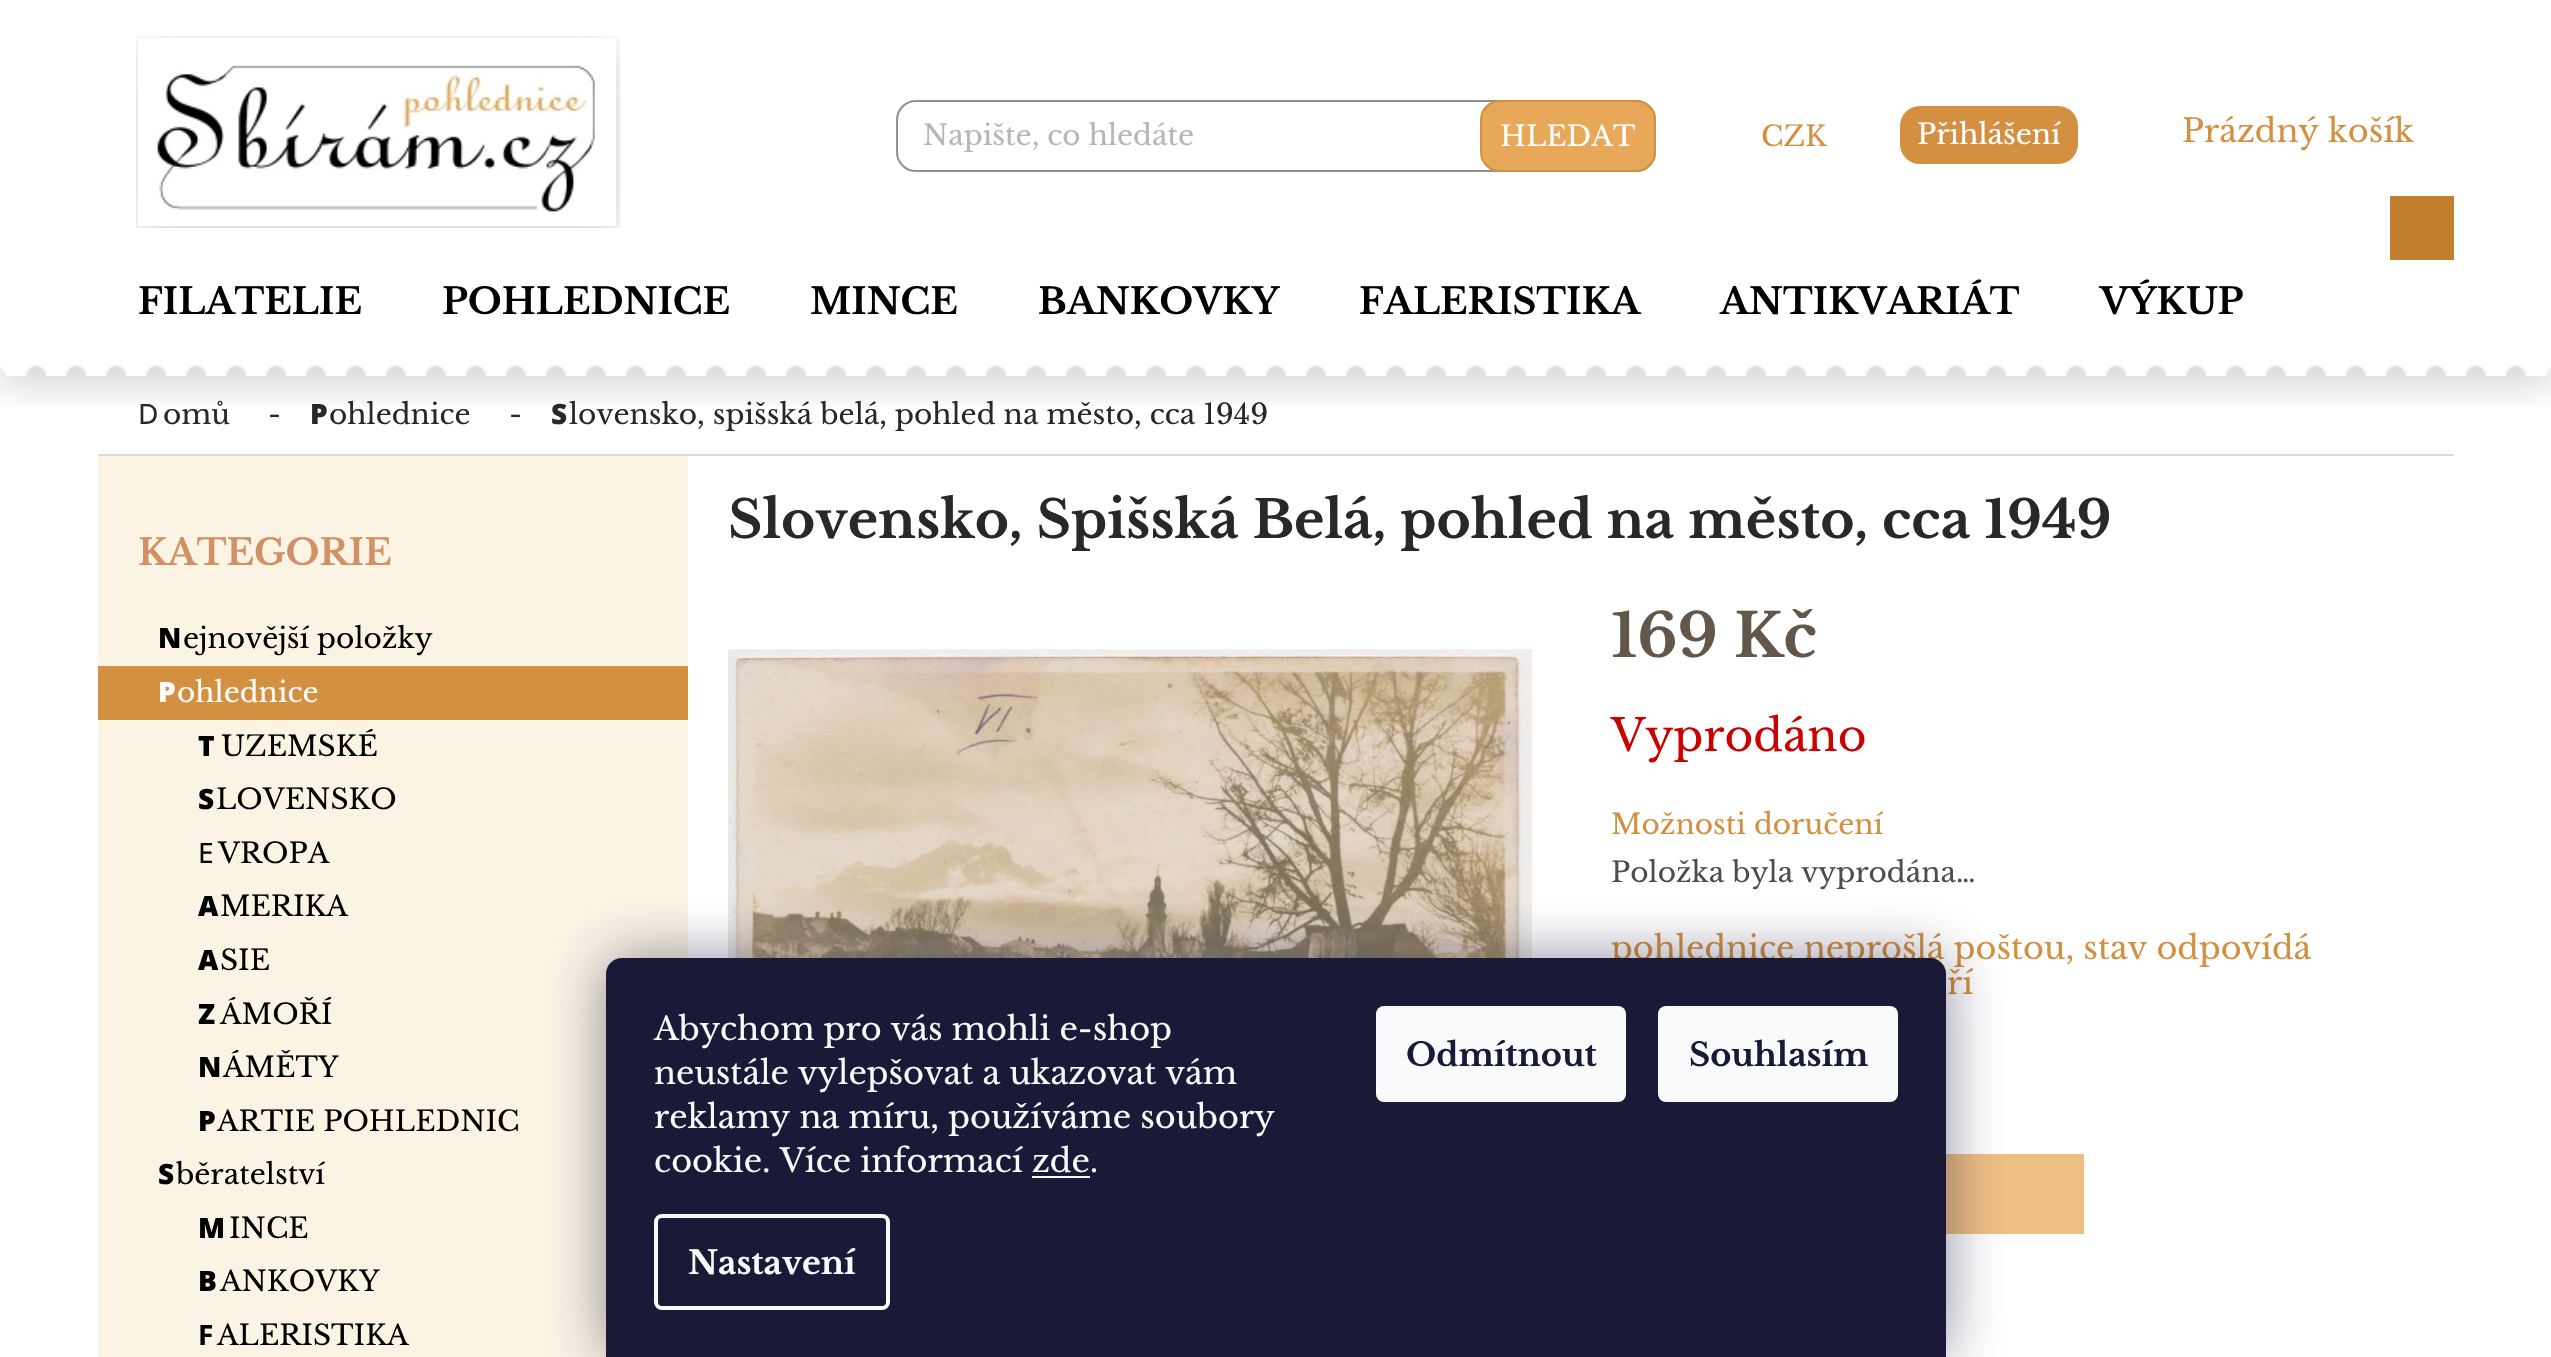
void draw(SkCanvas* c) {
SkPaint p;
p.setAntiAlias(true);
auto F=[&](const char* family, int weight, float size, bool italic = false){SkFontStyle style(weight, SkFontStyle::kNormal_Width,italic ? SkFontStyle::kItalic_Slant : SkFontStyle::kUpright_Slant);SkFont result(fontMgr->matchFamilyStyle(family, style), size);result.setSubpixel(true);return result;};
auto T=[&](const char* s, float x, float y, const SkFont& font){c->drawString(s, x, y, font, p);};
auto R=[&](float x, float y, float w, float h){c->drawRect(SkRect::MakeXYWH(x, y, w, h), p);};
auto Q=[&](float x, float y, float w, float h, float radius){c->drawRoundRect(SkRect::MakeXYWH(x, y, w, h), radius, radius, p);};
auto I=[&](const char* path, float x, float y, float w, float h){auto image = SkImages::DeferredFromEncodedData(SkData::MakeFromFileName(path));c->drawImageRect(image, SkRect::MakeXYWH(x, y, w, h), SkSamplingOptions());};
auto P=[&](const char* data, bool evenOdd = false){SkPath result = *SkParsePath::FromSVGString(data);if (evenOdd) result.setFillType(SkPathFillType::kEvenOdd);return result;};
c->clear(0xffffffff);
auto f1 = F("Noto Sans",900,28);
p.setColor(0xff282828);
T("S",551,424,f1);
auto f2 = F("Libre Baskerville",400,28);
T("lovensko, spišská belá, pohled na město, cca 1949",569,424,f2);
I("1.png",0,365,2551,41);
I("2.png",136,36,484,192);
p.setStroke(true);
p.setStrokeWidth(2);
p.setColor(0xff919191);
c->drawRoundRect(SkRect::MakeXYWH(897,101,758,70),19,19,p);
p.setStroke(false);
p.setColor(0xffb6b6b6);
T("Napište, co hledáte",923,145,f2);
p.setColor(0xffe7a859);
c->drawRoundRect(SkRect::MakeXYWH(1481,101,174,70),19,19,p);
p.setStroke(true);
p.setColor(0xffd29040);
c->drawRoundRect(SkRect::MakeXYWH(1481,101,174,70),19,19,p);
p.setStroke(false);
p.setColor(0xffffffff);
T("HLEDAT",1500,146,f2);
p.setColor(0xffd29040);
T("CZK",1761,146,f2);
Q(1900,106,178,58,20);
p.setColor(0xffffffff);
T("Přihlášení",1917,144,f2);
auto f3 = F("Libre Baskerville",400,32);
p.setColor(0xffd29040);
T("Prázdný košík",2182,142,f3);
p.setColor(0xffc27f2e);
R(2390,196,64,64);
auto f4 = F("Libre Baskerville",700,36);
p.setColor(0xff000000);
T("FILATELIE",138,314,f4);
T("POHLEDNICE",442,314,f4);
T("MINCE",810,314,f4);
T("BANKOVKY",1038,314,f4);
T("FALERISTIKA",1359,314,f4);
T("ANTIKVARIÁT",1720,314,f4);
T("VÝKUP",2100,314,f4);
p.setColor(0xffdadada);
R(98,454,2356,2);
auto f5 = F("Noto Sans",400,28);
p.setColor(0xff282828);
T("D",138,424,f5);
T("omů",163,424,f2);
T("-",268,424,f2);
T("P",310,424,f1);
T("ohlednice",329,424,f2);
T("-",509,424,f2);
p.setColor(0xfffbf4e4);
R(98,456,590,901);
p.setColor(0xffd29065);
T("KATEGORIE",138,565,f4);
p.setColor(0xff000000);
T("N",158,648,f1);
T("ejnovější položky",183,648,f2);
p.setColor(0xffd29040);
R(98,666,590,54);
p.setColor(0xffffffff);
T("P",158,702,f1);
T("ohlednice",177,702,f2);
p.setColor(0xff000000);
T("T",198,756,f1);
T("UZEMSKÉ",221,756,f2);
T("S",198,809,f1);
T("LOVENSKO",216,809,f2);
T("E",198,863,f5);
T("VROPA",218,863,f2);
T("A",198,916,f1);
T("MERIKA",220,916,f2);
T("A",198,970,f1);
T("SIE",220,970,f2);
T("Z",198,1024,f1);
T("ÁMOŘÍ",220,1024,f2);
T("N",198,1077,f1);
T("ÁMĚTY",223,1077,f2);
T("P",198,1131,f1);
T("ARTIE POHLEDNIC",217,1131,f2);
T("S",158,1184,f1);
T("běratelství",176,1184,f2);
T("M",198,1238,f1);
T("INCE",229,1238,f2);
T("B",198,1291,f1);
T("ANKOVKY",220,1291,f2);
auto f6 = F("Noto Sans",700,28);
T("F",198,1345,f6);
T("ALERISTIKA",217,1345,f2);
auto f7 = F("Libre Baskerville",700,52);
p.setColor(0xff282828);
T("Slovensko, Spišská Belá, pohled na město, cca 1949",728,538,f7);
I("3.png",728,649,804,309);
auto f8 = F("Libre Baskerville",700,60);
p.setColor(0xff63574a);
T("169 Kč",1611,657,f8);
auto f9 = F("Libre Baskerville",400,44);
p.setColor(0xffcb0000);
T("Vyprodáno",1611,751,f9);
p.setColor(0xffd29040);
T("Možnosti doručení",1611,834,f2);
p.setColor(0xff4d4d4d);
T("Položka byla vyprodána…",1611,882,f2);
p.setColor(0xffd29040);
T("pohlednice neprošlá poštou, stav odpovídá",1611,959,f3);
T("ří",1947,994,f3);
p.setColor(0xffefbe83);
R(1946,1154,138,80);
p.setColor(0x801b1939);
p.setMaskFilter(SkMaskFilter::MakeBlur(kNormal_SkBlurStyle, 30));
c->drawRoundRect(SkRect::MakeXYWH(606,958,1340,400),16,16,p);
p.setMaskFilter(nullptr);
p.setColor(0xff1a1937);
c->drawPath(P("M622 958h1308c9 0 16 7 16 16v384h-1340v-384c0-9 7-16 16-16z"),p);
p.setColor(0xfff8fafb);
T("Abychom pro vás mohli e-shop",654,1040,f3);
T("neustále vylepšovat a ukazovat vám",654,1084,f3);
T("reklamy na míru, používáme soubory",654,1128,f3);
T("cookie. Více informací zde.",654,1172,f3);
R(1032,1176,58,2);
p.setStroke(true);
p.setStrokeWidth(4);
c->drawRoundRect(SkRect::MakeXYWH(656,1216,232,92),6,6,p);
auto f10 = F("Libre Baskerville",700,32);
p.setStroke(false);
T("Nastavení",688,1274,f10);
Q(1376,1006,250,96,8);
p.setColor(0xff1a1937);
T("Odmítnout",1406,1066,f10);
p.setColor(0xfff8fafb);
Q(1658,1006,240,96,8);
p.setColor(0xff1a1937);
T("Souhlasím",1689,1066,f10);
}
